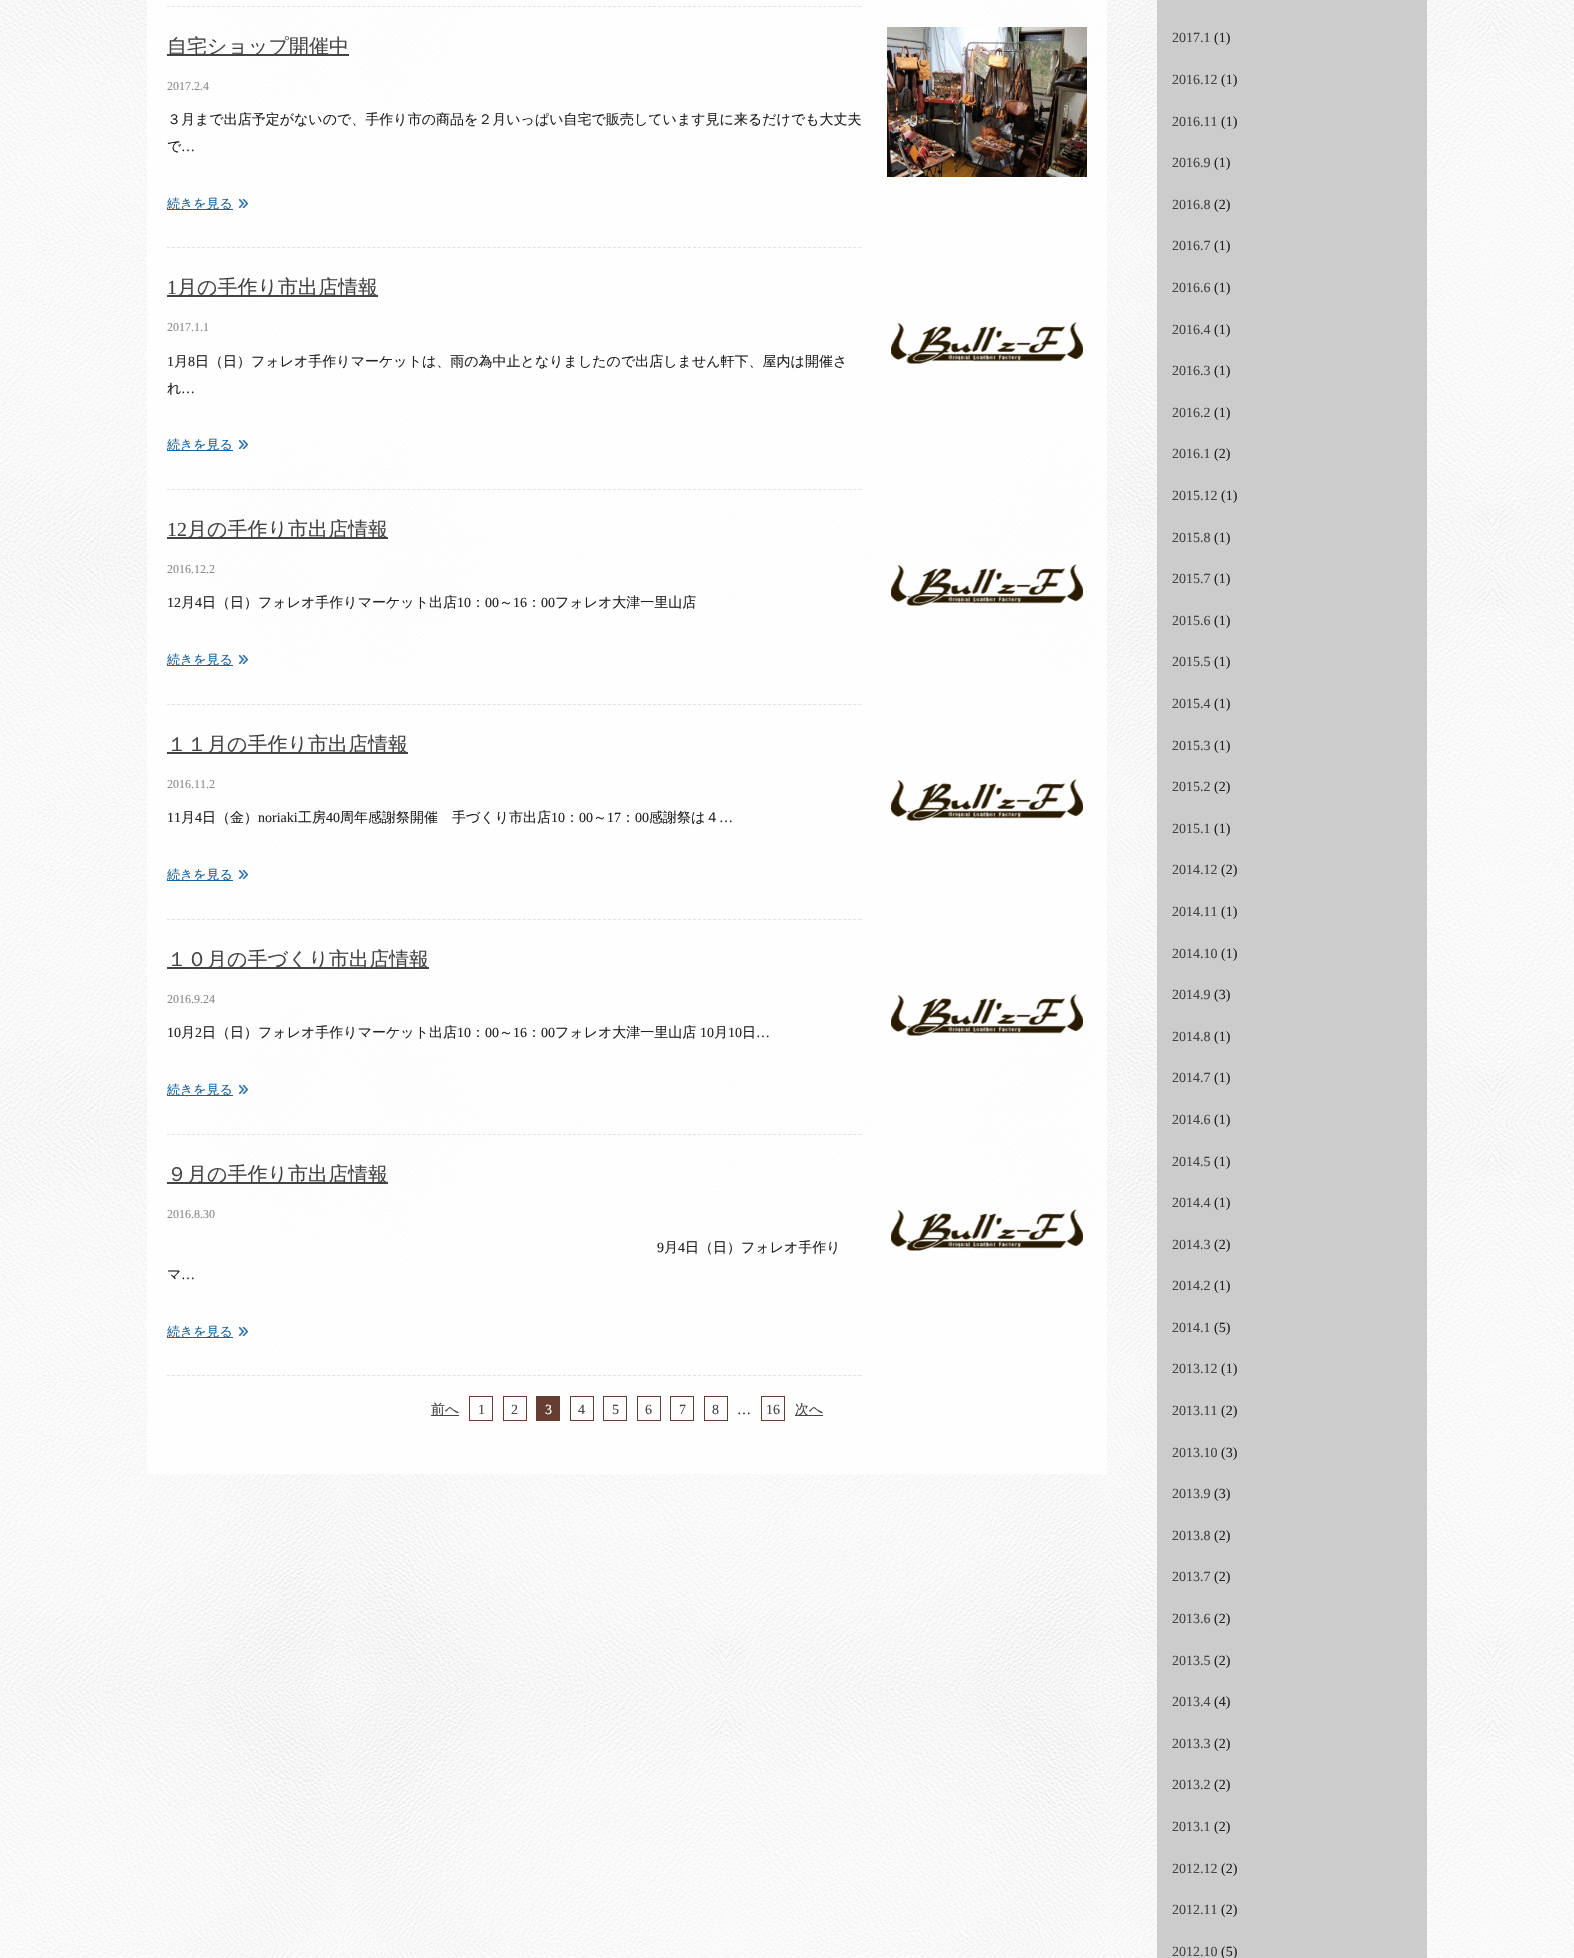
void draw(SkCanvas* c) {
SkPaint p;
p.setAntiAlias(true);
auto F=[&](const char* family, int weight, float size, bool italic = false){SkFontStyle style(weight, SkFontStyle::kNormal_Width,italic ? SkFontStyle::kItalic_Slant : SkFontStyle::kUpright_Slant);SkFont result(fontMgr->matchFamilyStyle(family, style), size);result.setSubpixel(true);return result;};
auto T=[&](const char* s, float x, float y, const SkFont& font){c->drawString(s, x, y, font, p);};
auto R=[&](float x, float y, float w, float h){c->drawRect(SkRect::MakeXYWH(x, y, w, h), p);};
auto I=[&](const char* path, float x, float y, float w, float h){auto image = SkImages::DeferredFromEncodedData(SkData::MakeFromFileName(path));c->drawImageRect(image, SkRect::MakeXYWH(x, y, w, h), SkSamplingOptions());};
auto P=[&](const char* data, bool evenOdd = false){SkPath result = *SkParsePath::FromSVGString(data);if (evenOdd) result.setFillType(SkPathFillType::kEvenOdd);return result;};
c->clear(0xffffffff);
I("1.png",0,0,1574,1958);
p.setColor(0xccffffff);
R(147,0,960,1474);
p.setStroke(true);
p.setStrokeWidth(1);
p.setColor(0xffd8e7d9);
p.setPathEffect(SkDashPathEffect::Make({{3,2.01f}}, 0));
c->drawPath(P("M167 6.5h695"),p);
p.setPathEffect(nullptr);
p.setPathEffect(SkDashPathEffect::Make({{3,2.01f}}, 0));
c->drawPath(P("M167 247.5h695"),p);
p.setPathEffect(nullptr);
p.setStroke(false);
p.setColor(0xff444444);
R(167,54,182,2);
auto f1 = F("WenQuanYi Zen Hei",500,20);
T("自宅ショップ開催中",167,53,f1);
auto f2 = F("Liberation Serif",400,12);
p.setColor(0xff8a8a8a);
T("2017.2.4",167,90,f2);
auto f3 = F("WenQuanYi Zen Hei",500,14);
p.setColor(0xff222222);
T("３月まで出店予定がないので、手作り市の商品を２月いっぱい自宅で販売しています見に来るだけでも大丈夫",167,124,f3);
T("で",167,151,f3);
auto f4 = F("Liberation Serif",400,14);
T("…",181,151,f4);
p.setColor(0xff1a629b);
R(167,209,66,1);
auto f5 = F("WenQuanYi Zen Hei",500,13);
T("続きを見る",167,208,f5);
I("2.png",239,199,9,9);
I("3.png",887,27,200,150);
p.setStroke(true);
p.setColor(0xffd8e7d9);
p.setPathEffect(SkDashPathEffect::Make({{3,2.01f}}, 0));
c->drawPath(P("M167 489.5h695"),p);
p.setPathEffect(nullptr);
auto f6 = F("Liberation Serif",400,20);
p.setStroke(false);
p.setColor(0xff444444);
T("1",167,294,f6);
R(167,295,211,2);
T("月の手作り市出店情報",177,294,f1);
p.setColor(0xff8a8a8a);
T("2017.1.1",167,331,f2);
p.setColor(0xff222222);
T("1",167,366,f4);
T("月",174,366,f3);
T("8",188,366,f4);
T("日（日）フォレオ手作りマーケットは、雨の為中止となりましたので出店しません軒下、屋内は開催さ",195,366,f3);
T("れ",167,393,f3);
T("…",181,393,f4);
p.setColor(0xff1a629b);
R(167,450,66,1);
T("続きを見る",167,449,f5);
I("4.png",239,440,9,9);
I("5.png",891,322,192,42);
p.setStroke(true);
p.setColor(0xffd8e7d9);
p.setPathEffect(SkDashPathEffect::Make({{3,2.01f}}, 0));
c->drawPath(P("M167 704.5h695"),p);
p.setPathEffect(nullptr);
p.setStroke(false);
p.setColor(0xff444444);
T("12",167,536,f6);
R(167,537,221,2);
T("月の手作り市出店情報",187,536,f1);
p.setColor(0xff8a8a8a);
T("2016.12.2",167,573,f2);
p.setColor(0xff222222);
T("12",167,607,f4);
T("月",181,607,f3);
T("4",195,607,f4);
T("日（日）フォレオ手作りマーケット出店",202,607,f3);
T("10",457,607,f4);
T("：",471,607,f3);
T("00",485,607,f4);
T("～",499,607,f3);
T("16",513,607,f4);
T("：",527,607,f3);
T("00",541,607,f4);
T("フォレオ大津一里山店",555,607,f3);
p.setColor(0xff1a629b);
R(167,665,66,1);
T("続きを見る",167,664,f5);
I("6.png",239,655,9,9);
I("7.png",891,564,192,42);
p.setStroke(true);
p.setColor(0xffd8e7d9);
p.setPathEffect(SkDashPathEffect::Make({{3,2.01f}}, 0));
c->drawPath(P("M167 919.5h695"),p);
p.setPathEffect(nullptr);
p.setStroke(false);
p.setColor(0xff444444);
R(167,752,241,2);
T("１１月の手作り市出店情報",167,751,f1);
p.setColor(0xff8a8a8a);
T("2016.11.2",167,788,f2);
p.setColor(0xff222222);
T("11",167,822,f4);
T("月",181,822,f3);
T("4",195,822,f4);
T("日（金）",202,822,f3);
T("noriaki",258,822,f4);
T("工房",298,822,f3);
T("40",326,822,f4);
T("周年感謝祭開催　手づくり市出店",340,822,f3);
T("10",551,822,f4);
T("：",565,822,f3);
T("00",579,822,f4);
T("～",593,822,f3);
T("17",607,822,f4);
T("：",621,822,f3);
T("00",635,822,f4);
T("感謝祭は４",649,822,f3);
T("…",719,822,f4);
p.setColor(0xff1a629b);
R(167,880,66,1);
T("続きを見る",167,879,f5);
I("8.png",239,870,9,9);
I("9.png",891,779,192,42);
p.setStroke(true);
p.setColor(0xffd8e7d9);
p.setPathEffect(SkDashPathEffect::Make({{3,2.01f}}, 0));
c->drawPath(P("M167 1134.5h695"),p);
p.setPathEffect(nullptr);
p.setStroke(false);
p.setColor(0xff444444);
R(167,967,262,2);
T("１０月の手づくり市出店情報",167,966,f1);
p.setColor(0xff8a8a8a);
T("2016.9.24",167,1003,f2);
p.setColor(0xff222222);
T("10",167,1037,f4);
T("月",181,1037,f3);
T("2",195,1037,f4);
T("日（日）フォレオ手作りマーケット出店",202,1037,f3);
T("10",457,1037,f4);
T("：",471,1037,f3);
T("00",485,1037,f4);
T("～",499,1037,f3);
T("16",513,1037,f4);
T("：",527,1037,f3);
T("00",541,1037,f4);
T("フォレオ大津一里山店",555,1037,f3);
T("10",700,1037,f4);
T("月",714,1037,f3);
T("10",728,1037,f4);
T("日",742,1037,f3);
T("…",756,1037,f4);
p.setColor(0xff1a629b);
R(167,1095,66,1);
T("続きを見る",167,1094,f5);
I("10.png",239,1085,9,9);
I("11.png",891,994,192,42);
p.setStroke(true);
p.setColor(0xffd8e7d9);
p.setPathEffect(SkDashPathEffect::Make({{3,2.01f}}, 0));
c->drawPath(P("M167 1375.5h695"),p);
p.setPathEffect(nullptr);
p.setStroke(false);
p.setColor(0xff444444);
R(167,1182,221,2);
T("９月の手作り市出店情報",167,1181,f1);
p.setColor(0xff8a8a8a);
T("2016.8.30",167,1218,f2);
p.setColor(0xff222222);
T("9",657,1252,f4);
T("月",664,1252,f3);
T("4",678,1252,f4);
T("日（日）フォレオ手作り",685,1252,f3);
T("マ",167,1279,f3);
T("…",181,1279,f4);
p.setColor(0xff1a629b);
R(167,1337,66,1);
T("続きを見る",167,1336,f5);
I("12.png",239,1327,9,9);
I("13.png",891,1209,192,42);
p.setColor(0xff444444);
R(431,1415,28,1);
T("前へ",431,1414,f3);
p.setStroke(true);
p.setColor(0xff663e31);
c->drawRect(SkRect::MakeXYWH(469.5,1396.5,23,24),p);
p.setStroke(false);
p.setColor(0xff444444);
T("1",478,1414,f4);
p.setStroke(true);
p.setColor(0xff663e31);
c->drawRect(SkRect::MakeXYWH(503.5,1396.5,23,24),p);
p.setStroke(false);
p.setColor(0xff444444);
T("2",511,1414,f4);
p.setColor(0xff663e31);
R(536,1396,24,25);
p.setColor(0xffffffff);
T("3",545,1414,f4);
p.setStroke(true);
p.setColor(0xff663e31);
c->drawRect(SkRect::MakeXYWH(570.5,1396.5,23,24),p);
p.setStroke(false);
p.setColor(0xff444444);
T("4",578,1414,f4);
p.setStroke(true);
p.setColor(0xff663e31);
c->drawRect(SkRect::MakeXYWH(603.5,1396.5,23,24),p);
p.setStroke(false);
p.setColor(0xff444444);
T("5",612,1414,f4);
p.setStroke(true);
p.setColor(0xff663e31);
c->drawRect(SkRect::MakeXYWH(637.5,1396.5,23,24),p);
p.setStroke(false);
p.setColor(0xff444444);
T("6",645,1414,f4);
p.setStroke(true);
p.setColor(0xff663e31);
c->drawRect(SkRect::MakeXYWH(670.5,1396.5,23,24),p);
p.setStroke(false);
p.setColor(0xff444444);
T("7",679,1414,f4);
p.setStroke(true);
p.setColor(0xff663e31);
c->drawRect(SkRect::MakeXYWH(704.5,1396.5,23,24),p);
p.setStroke(false);
p.setColor(0xff444444);
T("8",712,1414,f4);
p.setColor(0xff222222);
T("…",737,1414,f4);
p.setStroke(true);
p.setColor(0xff663e31);
c->drawRect(SkRect::MakeXYWH(761.5,1396.5,23,24),p);
p.setStroke(false);
p.setColor(0xff444444);
T("16",766,1414,f4);
R(795,1415,28,1);
T("次へ",795,1414,f3);
p.setColor(0xffcccccc);
R(1157,0,270,1958);
p.setColor(0xff444444);
T("2017.1",1172,42,f4);
p.setColor(0xff222222);
T("(1)",1214,42,f4);
p.setColor(0xff444444);
T("2016.12",1172,84,f4);
p.setColor(0xff222222);
T("(1)",1221,84,f4);
p.setColor(0xff444444);
T("2016.11",1172,126,f4);
p.setColor(0xff222222);
T("(1)",1221,126,f4);
p.setColor(0xff444444);
T("2016.9",1172,167,f4);
p.setColor(0xff222222);
T("(1)",1214,167,f4);
p.setColor(0xff444444);
T("2016.8",1172,209,f4);
p.setColor(0xff222222);
T("(2)",1214,209,f4);
p.setColor(0xff444444);
T("2016.7",1172,250,f4);
p.setColor(0xff222222);
T("(1)",1214,250,f4);
p.setColor(0xff444444);
T("2016.6",1172,292,f4);
p.setColor(0xff222222);
T("(1)",1214,292,f4);
p.setColor(0xff444444);
T("2016.4",1172,334,f4);
p.setColor(0xff222222);
T("(1)",1214,334,f4);
p.setColor(0xff444444);
T("2016.3",1172,375,f4);
p.setColor(0xff222222);
T("(1)",1214,375,f4);
p.setColor(0xff444444);
T("2016.2",1172,417,f4);
p.setColor(0xff222222);
T("(1)",1214,417,f4);
p.setColor(0xff444444);
T("2016.1",1172,458,f4);
p.setColor(0xff222222);
T("(2)",1214,458,f4);
p.setColor(0xff444444);
T("2015.12",1172,500,f4);
p.setColor(0xff222222);
T("(1)",1221,500,f4);
p.setColor(0xff444444);
T("2015.8",1172,542,f4);
p.setColor(0xff222222);
T("(1)",1214,542,f4);
p.setColor(0xff444444);
T("2015.7",1172,583,f4);
p.setColor(0xff222222);
T("(1)",1214,583,f4);
p.setColor(0xff444444);
T("2015.6",1172,625,f4);
p.setColor(0xff222222);
T("(1)",1214,625,f4);
p.setColor(0xff444444);
T("2015.5",1172,666,f4);
p.setColor(0xff222222);
T("(1)",1214,666,f4);
p.setColor(0xff444444);
T("2015.4",1172,708,f4);
p.setColor(0xff222222);
T("(1)",1214,708,f4);
p.setColor(0xff444444);
T("2015.3",1172,750,f4);
p.setColor(0xff222222);
T("(1)",1214,750,f4);
p.setColor(0xff444444);
T("2015.2",1172,791,f4);
p.setColor(0xff222222);
T("(2)",1214,791,f4);
p.setColor(0xff444444);
T("2015.1",1172,833,f4);
p.setColor(0xff222222);
T("(1)",1214,833,f4);
p.setColor(0xff444444);
T("2014.12",1172,874,f4);
p.setColor(0xff222222);
T("(2)",1221,874,f4);
p.setColor(0xff444444);
T("2014.11",1172,916,f4);
p.setColor(0xff222222);
T("(1)",1221,916,f4);
p.setColor(0xff444444);
T("2014.10",1172,958,f4);
p.setColor(0xff222222);
T("(1)",1221,958,f4);
p.setColor(0xff444444);
T("2014.9",1172,999,f4);
p.setColor(0xff222222);
T("(3)",1214,999,f4);
p.setColor(0xff444444);
T("2014.8",1172,1041,f4);
p.setColor(0xff222222);
T("(1)",1214,1041,f4);
p.setColor(0xff444444);
T("2014.7",1172,1082,f4);
p.setColor(0xff222222);
T("(1)",1214,1082,f4);
p.setColor(0xff444444);
T("2014.6",1172,1124,f4);
p.setColor(0xff222222);
T("(1)",1214,1124,f4);
p.setColor(0xff444444);
T("2014.5",1172,1166,f4);
p.setColor(0xff222222);
T("(1)",1214,1166,f4);
p.setColor(0xff444444);
T("2014.4",1172,1207,f4);
p.setColor(0xff222222);
T("(1)",1214,1207,f4);
p.setColor(0xff444444);
T("2014.3",1172,1249,f4);
p.setColor(0xff222222);
T("(2)",1214,1249,f4);
p.setColor(0xff444444);
T("2014.2",1172,1290,f4);
p.setColor(0xff222222);
T("(1)",1214,1290,f4);
p.setColor(0xff444444);
T("2014.1",1172,1332,f4);
p.setColor(0xff222222);
T("(5)",1214,1332,f4);
p.setColor(0xff444444);
T("2013.12",1172,1373,f4);
p.setColor(0xff222222);
T("(1)",1221,1373,f4);
p.setColor(0xff444444);
T("2013.11",1172,1415,f4);
p.setColor(0xff222222);
T("(2)",1221,1415,f4);
p.setColor(0xff444444);
T("2013.10",1172,1457,f4);
p.setColor(0xff222222);
T("(3)",1221,1457,f4);
p.setColor(0xff444444);
T("2013.9",1172,1498,f4);
p.setColor(0xff222222);
T("(3)",1214,1498,f4);
p.setColor(0xff444444);
T("2013.8",1172,1540,f4);
p.setColor(0xff222222);
T("(2)",1214,1540,f4);
p.setColor(0xff444444);
T("2013.7",1172,1581,f4);
p.setColor(0xff222222);
T("(2)",1214,1581,f4);
p.setColor(0xff444444);
T("2013.6",1172,1623,f4);
p.setColor(0xff222222);
T("(2)",1214,1623,f4);
p.setColor(0xff444444);
T("2013.5",1172,1665,f4);
p.setColor(0xff222222);
T("(2)",1214,1665,f4);
p.setColor(0xff444444);
T("2013.4",1172,1706,f4);
p.setColor(0xff222222);
T("(4)",1214,1706,f4);
p.setColor(0xff444444);
T("2013.3",1172,1748,f4);
p.setColor(0xff222222);
T("(2)",1214,1748,f4);
p.setColor(0xff444444);
T("2013.2",1172,1789,f4);
p.setColor(0xff222222);
T("(2)",1214,1789,f4);
p.setColor(0xff444444);
T("2013.1",1172,1831,f4);
p.setColor(0xff222222);
T("(2)",1214,1831,f4);
p.setColor(0xff444444);
T("2012.12",1172,1873,f4);
p.setColor(0xff222222);
T("(2)",1221,1873,f4);
p.setColor(0xff444444);
T("2012.11",1172,1914,f4);
p.setColor(0xff222222);
T("(2)",1221,1914,f4);
p.setColor(0xff444444);
T("2012.10",1172,1956,f4);
p.setColor(0xff222222);
T("(5)",1221,1956,f4);
}
